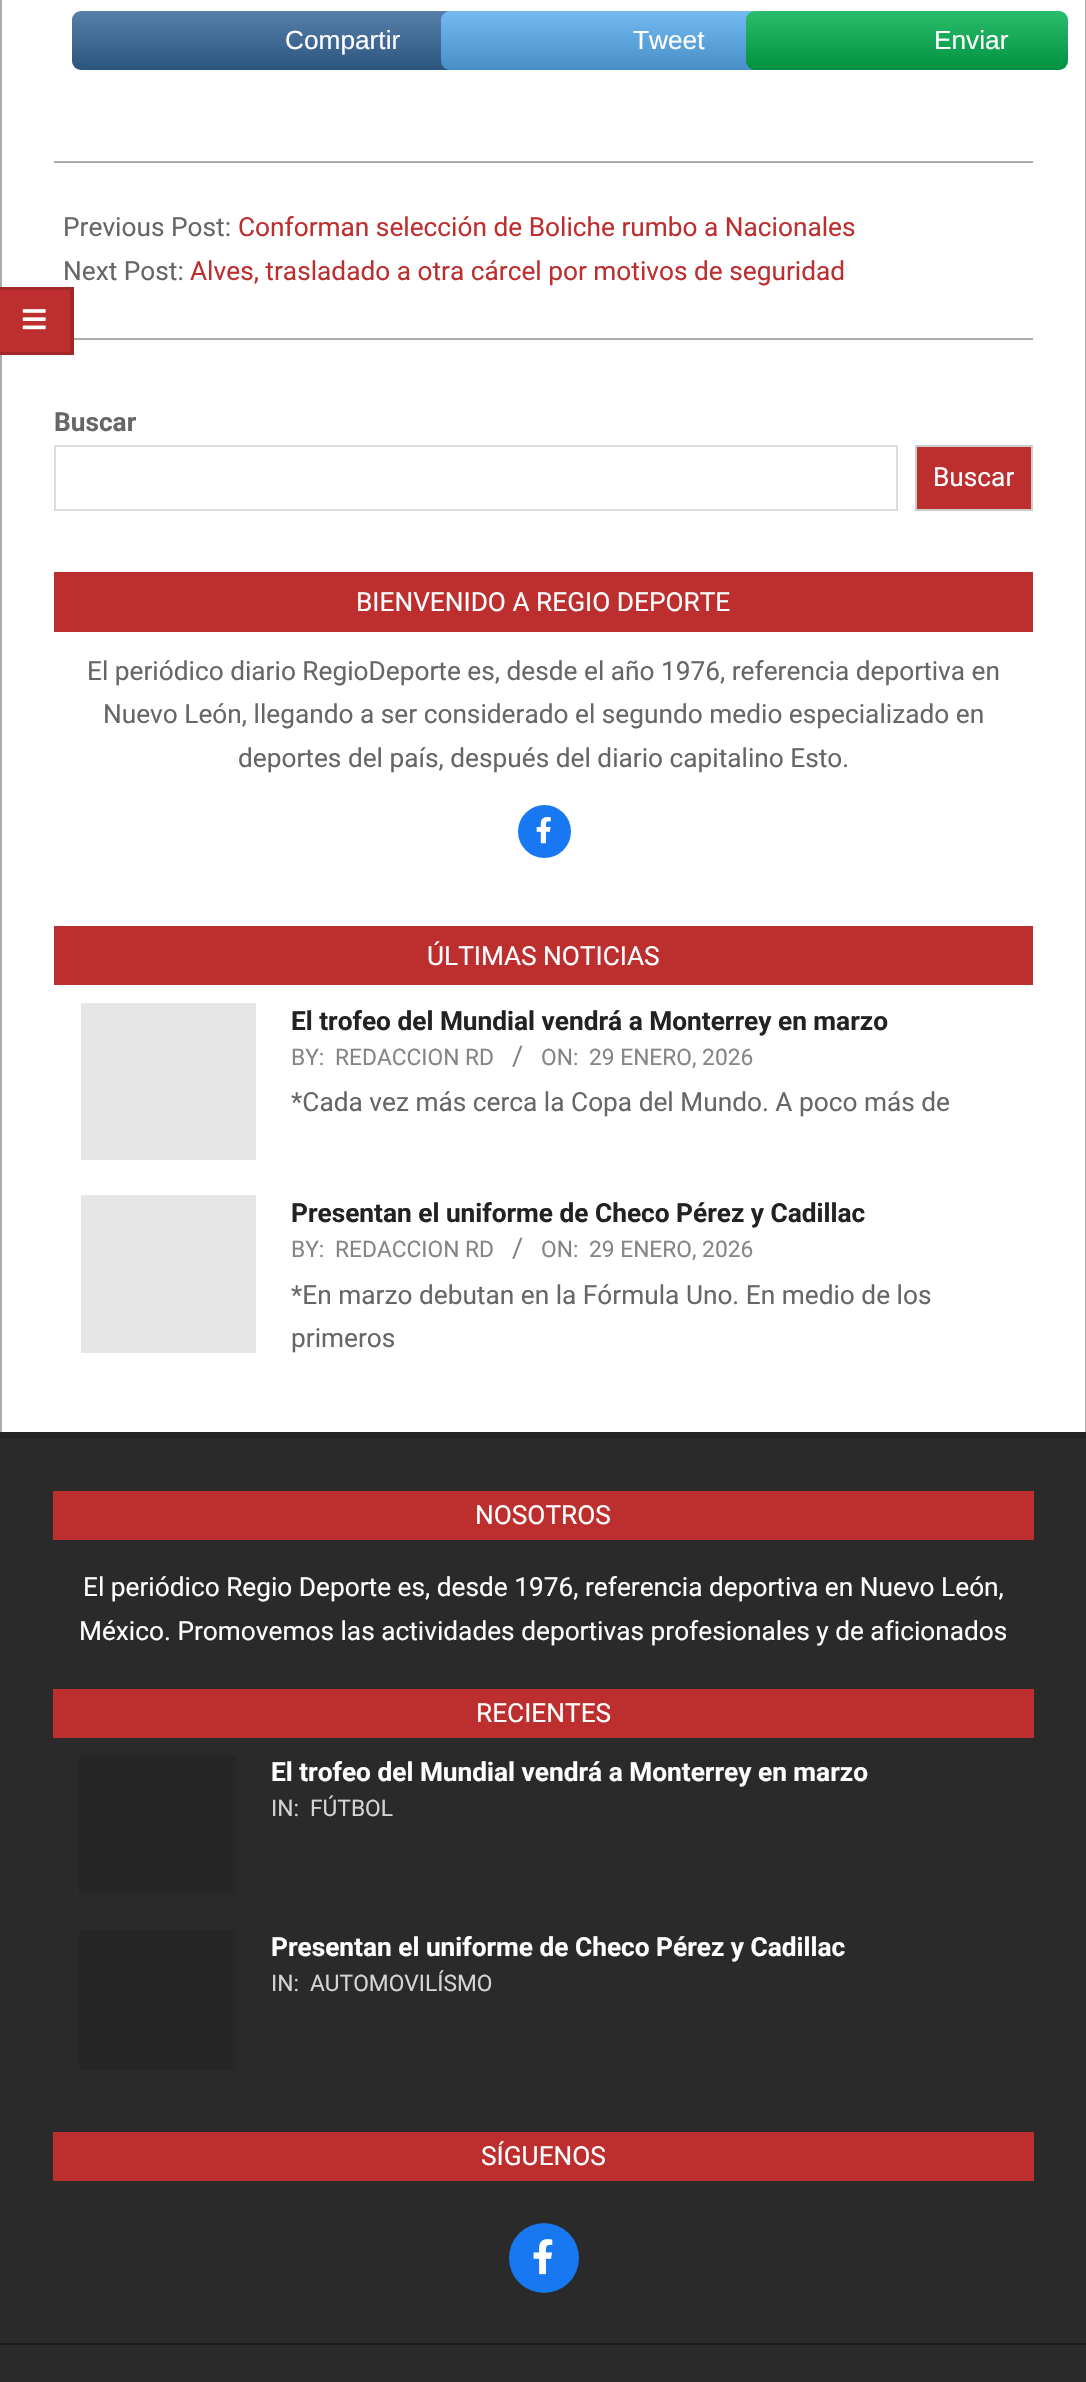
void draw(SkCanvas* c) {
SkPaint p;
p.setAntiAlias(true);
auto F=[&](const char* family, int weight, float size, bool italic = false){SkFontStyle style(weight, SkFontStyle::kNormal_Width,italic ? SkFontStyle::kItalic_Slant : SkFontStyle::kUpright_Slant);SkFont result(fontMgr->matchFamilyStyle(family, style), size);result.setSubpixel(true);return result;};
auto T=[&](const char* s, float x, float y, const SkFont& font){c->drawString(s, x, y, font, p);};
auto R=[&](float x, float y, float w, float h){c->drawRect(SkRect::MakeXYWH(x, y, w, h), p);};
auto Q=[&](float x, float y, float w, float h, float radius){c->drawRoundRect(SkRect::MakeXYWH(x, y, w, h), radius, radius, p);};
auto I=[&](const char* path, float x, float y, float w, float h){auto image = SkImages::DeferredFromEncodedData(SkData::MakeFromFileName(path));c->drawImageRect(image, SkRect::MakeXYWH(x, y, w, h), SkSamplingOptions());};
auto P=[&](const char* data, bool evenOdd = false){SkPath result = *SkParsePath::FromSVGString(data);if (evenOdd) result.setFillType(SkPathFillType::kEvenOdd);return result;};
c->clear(0xffffffff);
p.setColor(0xffababab);
R(0,0,2,1432);
p.setColor(0xffbd2e2e);
R(0,287,74,68);
p.setColor(0xffa32828);
c->drawPath(P("M0 287h74l-4 3h-70z"),p);
p.setColor(0x24000000);
c->drawPath(P("M74 287v68l-4-3v-62z"),p);
c->drawPath(P("M74 355h-74v-3h70z"),p);
I("1.png",22,309,24,21);
p.setColor(0xffababab);
R(1085,0,1,1432);
R(54,161,979,2);
p.setColor(0xff336699);
Q(72,11,387,59,9);
{
const SkColor colors[] = {0x2b000000,0x2bffffff};
const float stops[] = {0,1};
const SkPoint ends[] = {{265,70}, {265,11}};
p.setShader(SkGradientShader::MakeLinear(ends, colors, stops, 2, SkTileMode::kClamp));
p.setAlpha(255);
}
Q(72,11,387,59,9);
auto f1 = F("Liberation Sans",400,26.25);
p.setShader(nullptr);
p.setColor(0xffffffff);
T("Compartir",285,49,f1);
p.setColor(0xff55acee);
Q(441,11,322,59,9);
{
const SkColor colors[] = {0x2b000000,0x2bffffff};
const float stops[] = {0,1};
const SkPoint ends[] = {{602,70}, {602,11}};
p.setShader(SkGradientShader::MakeLinear(ends, colors, stops, 2, SkTileMode::kClamp));
p.setAlpha(255);
}
Q(441,11,322,59,9);
p.setShader(nullptr);
p.setColor(0xffffffff);
T("Tweet",633,49,f1);
p.setColor(0xff00b04e);
Q(746,11,322,59,9);
{
const SkColor colors[] = {0x2b000000,0x2bffffff};
const float stops[] = {0,1};
const SkPoint ends[] = {{907,70}, {907,11}};
p.setShader(SkGradientShader::MakeLinear(ends, colors, stops, 2, SkTileMode::kClamp));
p.setAlpha(255);
}
Q(746,11,322,59,9);
p.setShader(nullptr);
p.setColor(0xffffffff);
T("Enviar",934,49,f1);
p.setColor(0xffababab);
R(74,338,959,2);
auto f2 = F("Roboto",400,26.25);
p.setColor(0xff666666);
T("Previous Post:",63,236,f2);
p.setColor(0xffbd2e2e);
T("Conforman selección de Boliche rumbo a Nacionales",238,236,f2);
p.setColor(0xff666666);
T("Next Post:",63,280,f2);
p.setColor(0xffbd2e2e);
T("Alves, trasladado a otra cárcel por motivos de seguridad",190,280,f2);
auto f3 = F("Roboto",700,26.25);
p.setColor(0xff666666);
T("Buscar",54,431,f3);
p.setStroke(true);
p.setStrokeWidth(2);
p.setColor(0xffdddddd);
c->drawRect(SkRect::MakeXYWH(55,446,842,64),p);
p.setStroke(false);
p.setColor(0xffbd2e2e);
c->drawRect(SkRect::MakeXYWH(916,446,116,64),p);
p.setStroke(true);
p.setColor(0xffcccccc);
c->drawRect(SkRect::MakeXYWH(916,446,116,64),p);
p.setStroke(false);
p.setColor(0xffffffff);
T("Buscar",933,486,f2);
p.setColor(0xffbd2e2e);
R(54,572,979,60);
p.setColor(0xffffffff);
T("BIENVENIDO A REGIO DEPORTE",356,611,f2);
p.setColor(0xff666666);
T("El periódico diario RegioDeporte es, desde el año 1976, referencia deportiva en",87,680,f2);
T("Nuevo León, llegando a ser considerado el segundo medio especializado en",103,723,f2);
T("deportes del país, después del diario capitalino Esto.",238,767,f2);
p.setColor(0xff1778f2);
c->drawCircle(544.5,831.5,26.5,p);
I("2.png",536,817,15,27);
p.setColor(0xffbd2e2e);
R(54,926,979,59);
p.setColor(0xffffffff);
T("ÚLTIMAS NOTICIAS",427,965,f2);
p.setColor(0xffe6e6e6);
R(81,1003,175,157);
p.setColor(0xff222222);
T("El trofeo del Mundial vendrá a Monterrey en marzo",291,1030,f3);
auto f4 = F("Roboto",400,22.75);
p.setColor(0xff858585);
T("BY:",291,1065,f4);
T("REDACCION RD",335,1065,f4);
auto f5 = F("Roboto",400,27);
T("/",512,1065,f5);
T("ON:",541,1065,f4);
T("29 ENERO, 2026",589,1065,f4);
p.setColor(0xff666666);
T("*Cada vez más cerca la Copa del Mundo. A poco más de",291,1111,f2);
p.setColor(0xffe6e6e6);
R(81,1195,175,158);
p.setColor(0xff222222);
T("Presentan el uniforme de Checo Pérez y Cadillac",291,1222,f3);
p.setColor(0xff858585);
T("BY:",291,1257,f4);
T("REDACCION RD",335,1257,f4);
T("/",512,1257,f5);
T("ON:",541,1257,f4);
T("29 ENERO, 2026",589,1257,f4);
p.setColor(0xff666666);
T("*En marzo debutan en la Fórmula Uno. En medio de los",291,1304,f2);
T("primeros",291,1347,f2);
p.setColor(0xff2a2a2a);
R(0,1439,1086,904);
p.setColor(0xff242424);
R(0,1432,1086,7);
p.setColor(0xffbd2e2e);
R(53,1491,981,49);
p.setColor(0xffffffff);
T("NOSOTROS",475,1524,f2);
T("El periódico Regio Deporte es, desde 1976, referencia deportiva en Nuevo León,",83,1596,f2);
T("México. Promovemos las actividades deportivas profesionales y de aficionados",79,1640,f2);
p.setColor(0xffbd2e2e);
R(53,1689,981,49);
p.setColor(0xffffffff);
T("RECIENTES",476,1722,f2);
p.setColor(0xff262626);
R(79,1755,157,140);
p.setColor(0xffffffff);
T("El trofeo del Mundial vendrá a Monterrey en marzo",271,1781,f3);
p.setColor(0xffd4d4d4);
T("IN:",271,1816,f4);
T("FÚTBOL",310,1816,f4);
p.setColor(0xff262626);
R(79,1930,157,140);
p.setColor(0xffffffff);
T("Presentan el uniforme de Checo Pérez y Cadillac",271,1956,f3);
p.setColor(0xffd4d4d4);
T("IN:",271,1991,f4);
T("AUTOMOVILÍSMO",310,1991,f4);
p.setColor(0xffbd2e2e);
R(53,2132,981,49);
p.setColor(0xffffffff);
T("SÍGUENOS",481,2165,f2);
p.setColor(0xff1778f2);
c->drawCircle(544,2258,35,p);
I("3.png",533,2239,20,36);
p.setColor(0xff2a2a2a);
R(0,2345,1086,37);
p.setColor(0xff1c1c1c);
R(0,2343,1086,2);
}
